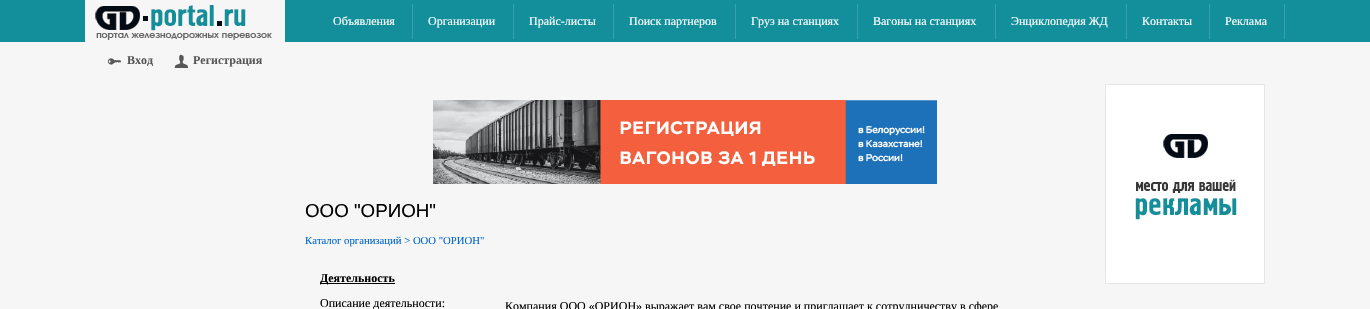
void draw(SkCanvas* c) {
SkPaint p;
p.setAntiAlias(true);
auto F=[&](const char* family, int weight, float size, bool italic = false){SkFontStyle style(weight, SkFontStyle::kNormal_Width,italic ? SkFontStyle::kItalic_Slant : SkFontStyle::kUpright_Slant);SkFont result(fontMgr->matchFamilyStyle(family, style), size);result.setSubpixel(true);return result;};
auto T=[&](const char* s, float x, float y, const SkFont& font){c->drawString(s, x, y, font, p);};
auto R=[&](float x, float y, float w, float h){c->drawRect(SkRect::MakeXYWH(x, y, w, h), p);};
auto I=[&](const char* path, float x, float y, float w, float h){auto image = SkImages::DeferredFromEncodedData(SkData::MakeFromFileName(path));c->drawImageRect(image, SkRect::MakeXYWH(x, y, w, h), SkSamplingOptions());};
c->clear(0xfff7f6f7);
p.setColor(0xff128f9a);
R(0,0,1370,42);
I("1.png",85,0,200,42);
p.setColor(0xff35a2ac);
R(412,4,1,35);
auto f1 = F("Liberation Serif",400,12);
p.setColor(0xffffffff);
T("Объявления",333,25,f1);
p.setColor(0xff35a2ac);
R(513,4,1,35);
p.setColor(0xffffffff);
T("Организации",428,25,f1);
p.setColor(0xff35a2ac);
R(613,4,1,35);
p.setColor(0xffffffff);
T("Прайс-листы",529,25,f1);
p.setColor(0xff35a2ac);
R(735,4,1,35);
p.setColor(0xffffffff);
T("Поиск партнеров",629,25,f1);
p.setColor(0xff35a2ac);
R(857,4,1,35);
p.setColor(0xffffffff);
T("Груз на станциях",751,25,f1);
p.setColor(0xff35a2ac);
R(995,4,1,35);
p.setColor(0xffffffff);
T("Вагоны на станциях",873,25,f1);
p.setColor(0xff35a2ac);
R(1126,4,1,35);
p.setColor(0xffffffff);
T("Энциклопедия ЖД",1011,25,f1);
p.setColor(0xff35a2ac);
R(1209,4,1,35);
p.setColor(0xffffffff);
T("Контакты",1142,25,f1);
p.setColor(0xff35a2ac);
R(1284,4,1,35);
p.setColor(0xffffffff);
T("Реклама",1225,25,f1);
I("2.png",107,58,15,7);
auto f2 = F("Liberation Serif",700,12);
p.setColor(0xff585858);
T("Вход",127,64,f2);
I("3.png",174,54,14,14);
T("Регистрация",193,64,f2);
I("4.png",433,100,504,84);
auto f3 = F("Liberation Sans",400,18.75);
p.setColor(0xff000000);
T("ООО \"ОРИОН\"",305,217,f3);
auto f4 = F("Liberation Serif",400,10.7);
p.setColor(0xff0066cc);
T("Каталог организаций > ООО \"ОРИОН\"",305,244,f4);
p.setColor(0xff000000);
R(320,283,75,1);
T("Деятельность",320,282,f2);
T("Описание деятельности:",320,307,f1);
T("Компания ООО «ОРИОН» выражает вам свое почтение и приглашает к сотрудничеству в сфере",505,310,f1);
I("5.png",1105,84,160,200);
}
